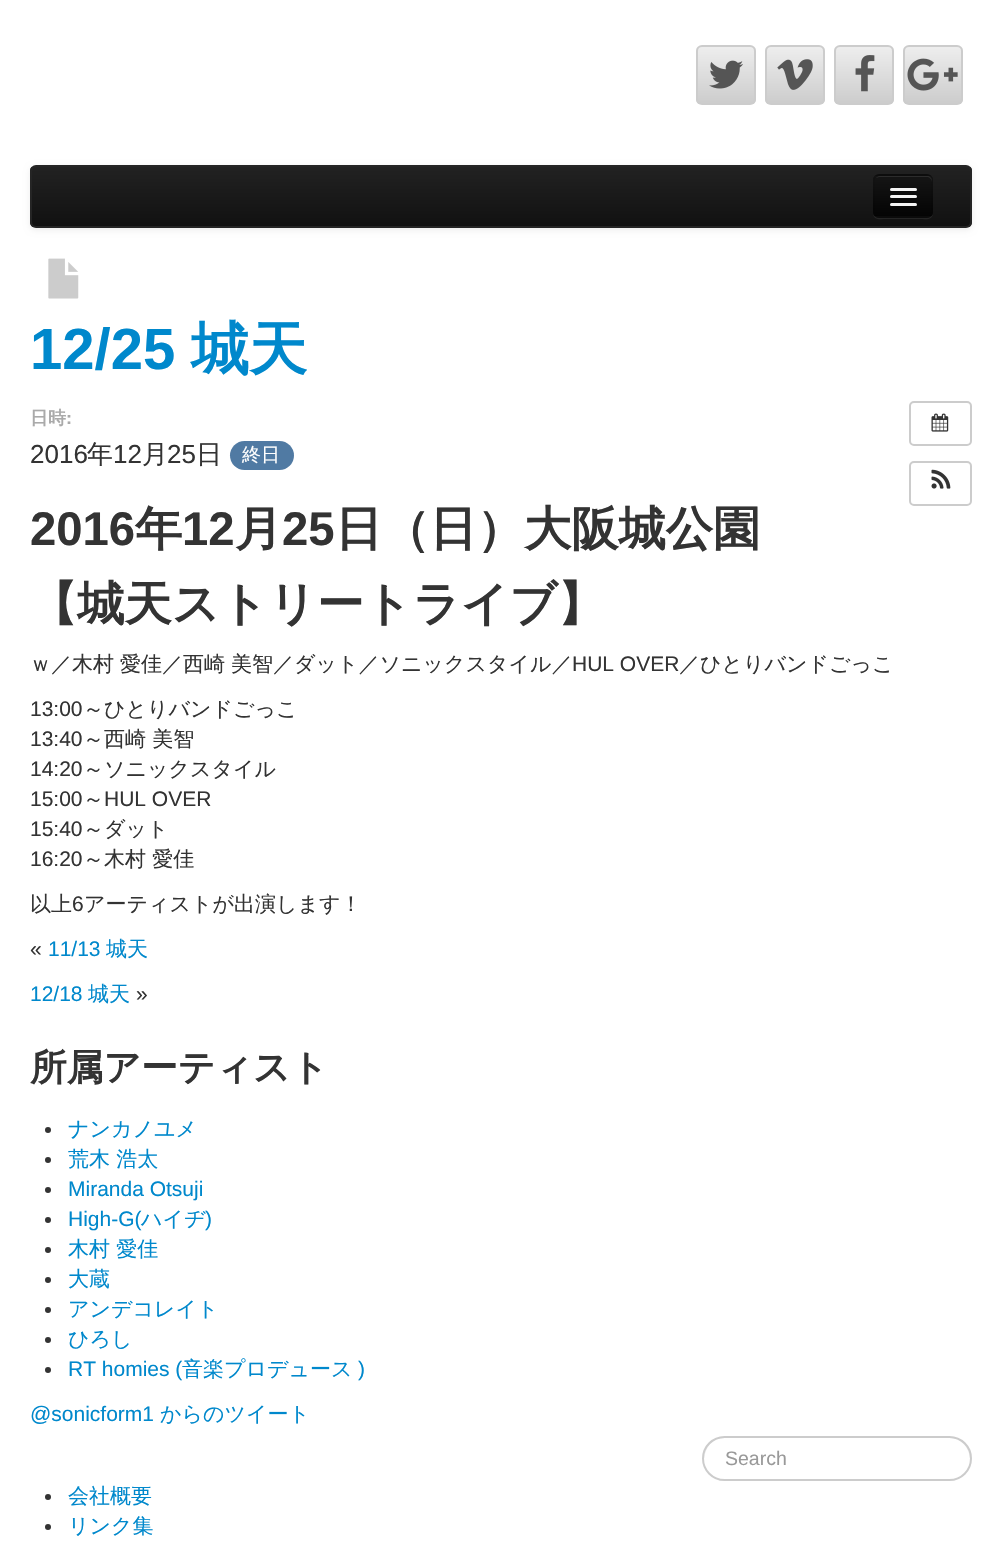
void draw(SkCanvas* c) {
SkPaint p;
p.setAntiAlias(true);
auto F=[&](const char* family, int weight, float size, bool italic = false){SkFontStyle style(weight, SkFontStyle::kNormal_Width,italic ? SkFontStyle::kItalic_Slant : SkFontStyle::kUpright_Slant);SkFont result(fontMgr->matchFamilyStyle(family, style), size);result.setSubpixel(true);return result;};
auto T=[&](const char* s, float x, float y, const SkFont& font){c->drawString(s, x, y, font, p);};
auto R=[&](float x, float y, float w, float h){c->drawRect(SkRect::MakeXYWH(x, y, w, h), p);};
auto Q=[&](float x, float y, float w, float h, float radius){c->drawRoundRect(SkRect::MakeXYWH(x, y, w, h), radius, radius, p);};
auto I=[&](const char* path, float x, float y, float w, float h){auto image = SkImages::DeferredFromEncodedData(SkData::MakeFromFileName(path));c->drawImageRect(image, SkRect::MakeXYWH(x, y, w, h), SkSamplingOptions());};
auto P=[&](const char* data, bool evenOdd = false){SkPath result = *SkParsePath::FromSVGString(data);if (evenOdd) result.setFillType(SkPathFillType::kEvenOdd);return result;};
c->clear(0xffffffff);
c->save();
c->clipPath(P("M702 45h48c3.5 0 6 2.5 6 6v48c0 3.5-2.5 6-6 6h-48c-3.5 0-6-2.5-6-6v-48c0-3.5 2.5-6 6-6z"),true);
{
const SkColor colors[] = {0xffeeeeee,0xffcccccc};
const float stops[] = {0,1};
const SkPoint ends[] = {{726,46}, {726,104}};
p.setShader(SkGradientShader::MakeLinear(ends, colors, stops, 2, SkTileMode::kClamp));
p.setAlpha(255);
}
R(696,47,60,57);
c->restore();
p.setStroke(true);
p.setStrokeWidth(2);
p.setShader(nullptr);
p.setColor(0xffcccccc);
c->drawRoundRect(SkRect::MakeXYWH(697,46,58,58),5,5,p);
I("1.png",709,60,34,29);
c->save();
c->clipPath(P("M771 45h48c3.5 0 6 2.5 6 6v48c0 3.5-2.5 6-6 6h-48c-3.5 0-6-2.5-6-6v-48c0-3.5 2.5-6 6-6z"),true);
p.setStroke(false);
{
const SkColor colors[] = {0xffeeeeee,0xffcccccc};
const float stops[] = {0,1};
const SkPoint ends[] = {{795,46}, {795,104}};
p.setShader(SkGradientShader::MakeLinear(ends, colors, stops, 2, SkTileMode::kClamp));
p.setAlpha(255);
}
R(765,47,60,57);
c->restore();
p.setStroke(true);
p.setShader(nullptr);
p.setColor(0xffcccccc);
c->drawRoundRect(SkRect::MakeXYWH(766,46,58,58),5,5,p);
I("2.png",777,59,36,31);
c->save();
c->clipPath(P("M840 45h48c3.5 0 6 2.5 6 6v48c0 3.5-2.5 6-6 6h-48c-3.5 0-6-2.5-6-6v-48c0-3.5 2.5-6 6-6z"),true);
p.setStroke(false);
{
const SkColor colors[] = {0xffeeeeee,0xffcccccc};
const float stops[] = {0,1};
const SkPoint ends[] = {{864,46}, {864,104}};
p.setShader(SkGradientShader::MakeLinear(ends, colors, stops, 2, SkTileMode::kClamp));
p.setAlpha(255);
}
R(834,47,60,57);
c->restore();
p.setStroke(true);
p.setShader(nullptr);
p.setColor(0xffcccccc);
c->drawRoundRect(SkRect::MakeXYWH(835,46,58,58),5,5,p);
I("3.png",855,55,20,37);
c->save();
c->clipPath(P("M909 45h48c3.5 0 6 2.5 6 6v48c0 3.5-2.5 6-6 6h-48c-3.5 0-6-2.5-6-6v-48c0-3.5 2.5-6 6-6z"),true);
p.setStroke(false);
{
const SkColor colors[] = {0xffeeeeee,0xffcccccc};
const float stops[] = {0,1};
const SkPoint ends[] = {{933,46}, {933,104}};
p.setShader(SkGradientShader::MakeLinear(ends, colors, stops, 2, SkTileMode::kClamp));
p.setAlpha(255);
}
R(903,47,60,57);
c->restore();
p.setStroke(true);
p.setShader(nullptr);
p.setColor(0xffcccccc);
c->drawRoundRect(SkRect::MakeXYWH(904,46,58,58),5,5,p);
I("4.png",907,58,51,33);
p.setStroke(false);
p.setColor(0x12000000);
p.setMaskFilter(SkMaskFilter::MakeBlur(kNormal_SkBlurStyle, 3));
c->drawRoundRect(SkRect::MakeXYWH(30,167,942,63),6,6,p);
p.setMaskFilter(nullptr);
c->save();
c->clipPath(P("M36 165h930c3.5 0 6 2.5 6 6v51c0 3.5-2.5 6-6 6h-930c-3.5 0-6-2.5-6-6v-51c0-3.5 2.5-6 6-6z"),true);
{
const SkColor colors[] = {0xff222222,0xff111111};
const float stops[] = {0,1};
const SkPoint ends[] = {{501,166}, {501,227}};
p.setShader(SkGradientShader::MakeLinear(ends, colors, stops, 2, SkTileMode::kClamp));
p.setAlpha(255);
}
R(30,167,942,60);
c->restore();
p.setStroke(true);
p.setShader(nullptr);
p.setColor(0xff252525);
c->drawRoundRect(SkRect::MakeXYWH(31,166,940,61),5,5,p);
p.setStroke(false);
c->drawPath(P("M873 212c0 9 7 7 14 7h32c7 0 14 2 14-7c0 3-3 6-6 6h-48c-3 0-6-3-6-6z"),p);
p.setColor(0xff0e0e0e);
Q(873,174,60,44,6);
c->save();
c->clipPath(P("M879 174h48c3.5 0 6 2.5 6 6v32c0 3.5-2.5 6-6 6h-48c-3.5 0-6-2.5-6-6v-32c0-3.5 2.5-6 6-6z"),true);
{
const SkColor colors[] = {0xff151515,0xff040404};
const float stops[] = {0,1};
const SkPoint ends[] = {{903,176}, {903,216}};
p.setShader(SkGradientShader::MakeLinear(ends, colors, stops, 2, SkTileMode::kClamp));
p.setAlpha(255);
}
R(873,176,60,40);
c->restore();
p.setShader(nullptr);
p.setColor(0xff2c2c2c);
c->drawPath(P("M879 177h48c2 0 5 2 5 5v-1c0-3-2-5-5-5h-47c-2 0-3 1-4 2z"),p);
p.setStroke(true);
p.setStrokeWidth(1.5);
p.setColor(0x40000000);
c->drawPath(P("M930.5 215c-1 1-2 2-3.5 2h-48c-1.5 0-2.5-1-3.5-2"),p);
p.setColor(0x1a000000);
c->drawPath(P("M875.5 215c-1-1-1.5-2-1.5-3.5v-31.5c0-1.5 .5-2.5 1.5-3.5c1-1 2-1.5 3.5-1.5h48c1.5 0 2.5 .5 3.5 1.5c1 1 1.5 2 1.5 3.5v31.5c0 1.5-.5 2.5-1.5 3.5"),p);
p.setStroke(false);
p.setColor(0xff0b0b0b);
c->drawPath(P("M890 190c-.5 3 5 2 5.5 2h20c1.5 0 2-2 1-2.5l-1 1c-1.5 .5-25 0-25.5-.5z"),p);
p.setColor(0xfff5f5f5);
Q(890,188,27,3,1.5);
p.setColor(0xff080808);
c->drawPath(P("M890 198c-1.5 3 5.5 2 5.5 2h20.5c1-.5 1.5-2 .5-3l-1.5 1c-2 .5-24 .5-25 0z"),p);
p.setColor(0xfff5f5f5);
Q(890,195,27,3,1.5);
Q(890,203,27,3,1.5);
I("5.png",48,258,31,41);
auto f1 = F("Liberation Sans",700,58);
p.setColor(0xff0088cc);
T("12/25",30,369,f1);
auto f2 = F("WenQuanYi Zen Hei",700,58);
T("城天",191,369,f2);
auto f3 = F("WenQuanYi Zen Hei",700,18);
p.setColor(0xffaaaaaa);
T("日時",30,424,f3);
auto f4 = F("Liberation Sans",700,18);
T(":",66,424,f4);
auto f5 = F("Liberation Sans",400,26);
p.setColor(0xff333333);
T("2016",30,463,f5);
auto f6 = F("WenQuanYi Zen Hei",500,26);
T("年",87,463,f6);
T("12",113,463,f5);
T("月",142,463,f6);
T("25",167,463,f5);
T("日",196,463,f6);
p.setColor(0xff507aa3);
Q(230,441,64,29,14.5);
auto f7 = F("WenQuanYi Zen Hei",500,19);
p.setColor(0xffffffff);
T("終日",242,461,f7);
p.setStroke(true);
p.setStrokeWidth(2);
p.setColor(0xffcccccc);
c->drawRoundRect(SkRect::MakeXYWH(910,402,61,43),4,4,p);
I("6.png",931,413,18,19);
c->drawRoundRect(SkRect::MakeXYWH(910,462,61,43),4,4,p);
I("7.png",931,469,20,20);
auto f8 = F("Liberation Sans",700,47.25);
p.setStroke(false);
p.setColor(0xff333333);
T("2016",30,545,f8);
auto f9 = F("WenQuanYi Zen Hei",700,47.25);
T("年",135,545,f9);
T("12",182,545,f8);
T("月",235,545,f9);
T("25",282,545,f8);
T("日（日）大阪城公園",335,545,f9);
T("【城天ストリートライブ】",30,620,f9);
auto f10 = F("WenQuanYi Zen Hei",500,21);
T("ｗ／木村",30,671,f10);
T("愛佳／西崎",120,671,f10);
T("美智／ダット／ソニックスタイル／",231,671,f10);
auto f11 = F("Liberation Sans",400,21);
T("HUL OVER",572,671,f11);
T("／ひとりバンドごっこ",679,671,f10);
T("13:00",30,716,f11);
T("～ひとりバンドごっこ",83,716,f10);
T("13:40",30,746,f11);
T("～西崎 美智",83,746,f10);
T("14:20",30,776,f11);
T("～ソニックスタイル",83,776,f10);
T("15:00",30,806,f11);
T("～",83,806,f10);
T("HUL OVER",104,806,f11);
T("15:40",30,836,f11);
T("～ダット",83,836,f10);
T("16:20",30,866,f11);
T("～木村 愛佳",83,866,f10);
T("以上",30,911,f10);
T("6",72,911,f11);
T("アーティストが出演します！",84,911,f10);
T("«",30,956,f11);
p.setColor(0xff0088cc);
T("11/13",48,956,f11);
T("城天",106,956,f10);
T("12/18",30,1001,f11);
T("城天",88,1001,f10);
p.setColor(0xff333333);
T("»",136,1001,f11);
auto f12 = F("WenQuanYi Zen Hei",700,36.75);
T("所属アーティスト",30,1080,f12);
c->drawCircle(48,1130,3,p);
p.setColor(0xff0088cc);
T("ナンカノユメ",68,1136,f10);
p.setColor(0xff333333);
c->drawCircle(48,1160,3,p);
p.setColor(0xff0088cc);
T("荒木 浩太",68,1166,f10);
p.setColor(0xff333333);
c->drawCircle(48,1190,3,p);
p.setColor(0xff0088cc);
T("Miranda Otsuji",68,1196,f11);
p.setColor(0xff333333);
c->drawCircle(48,1220,3,p);
p.setColor(0xff0088cc);
T("High-G(",68,1226,f11);
T("ハイヂ",141,1226,f10);
T(")",205,1226,f11);
p.setColor(0xff333333);
c->drawCircle(48,1250,3,p);
p.setColor(0xff0088cc);
T("木村 愛佳",68,1256,f10);
p.setColor(0xff333333);
c->drawCircle(48,1280,3,p);
p.setColor(0xff0088cc);
T("大蔵",68,1286,f10);
p.setColor(0xff333333);
c->drawCircle(48,1310,3,p);
p.setColor(0xff0088cc);
T("アンデコレイト",68,1316,f10);
p.setColor(0xff333333);
c->drawCircle(48,1340,3,p);
p.setColor(0xff0088cc);
T("ひろし",68,1346,f10);
p.setColor(0xff333333);
c->drawCircle(48,1370,3,p);
p.setColor(0xff0088cc);
T("RT homies (",68,1376,f11);
T("音楽プロデュース",182,1376,f10);
T(")",358,1376,f11);
T("@sonicform1",30,1421,f11);
T("からのツイート",160,1421,f10);
p.setColor(0xffececec);
c->drawPath(P("M724 1438h226c11 0 20 10 20 22c0 3-1 7-2 9c2-3 3-7 3-11c0-12-9-21-21-21h-225c-12 0-21 9-21 21v1c1-12 9-21 20-21z"),p);
p.setStroke(true);
p.setColor(0xffcccccc);
c->drawRoundRect(SkRect::MakeXYWH(703,1437,268,43),21.5,21.5,p);
auto f13 = F("Liberation Sans",400,19.5);
p.setStroke(false);
p.setColor(0xff999999);
T("Search",725,1465,f13);
p.setColor(0xff333333);
c->drawCircle(48,1497,3,p);
p.setColor(0xff0088cc);
T("会社概要",68,1503,f10);
p.setColor(0xff333333);
c->drawCircle(48,1527,3,p);
p.setColor(0xff0088cc);
T("リンク集",68,1533,f10);
}
